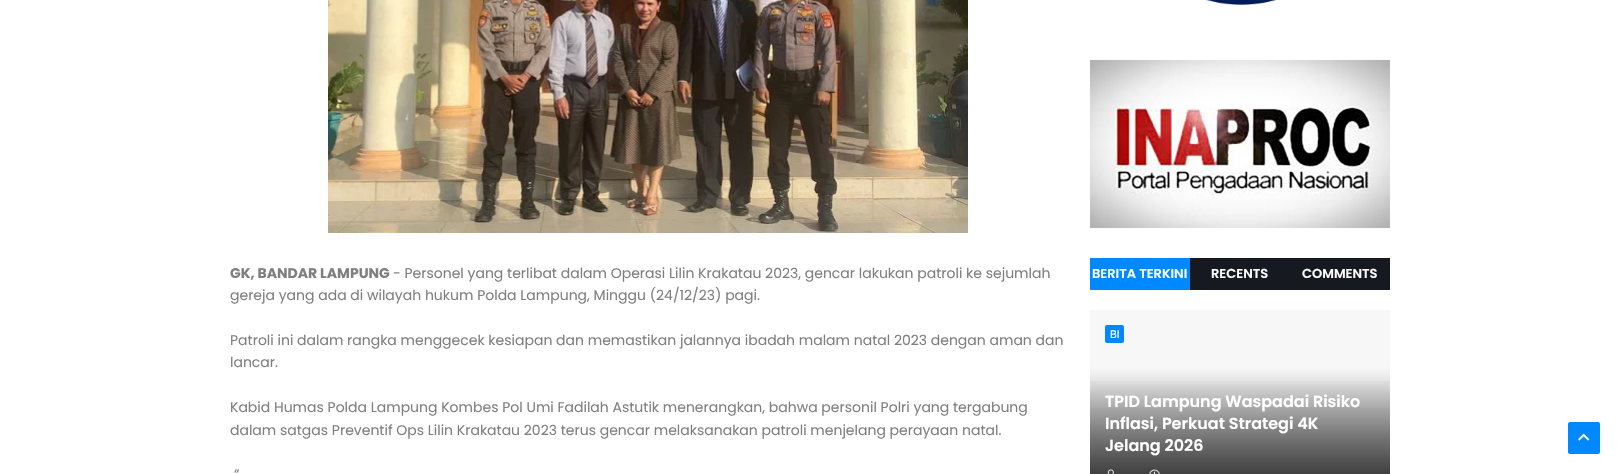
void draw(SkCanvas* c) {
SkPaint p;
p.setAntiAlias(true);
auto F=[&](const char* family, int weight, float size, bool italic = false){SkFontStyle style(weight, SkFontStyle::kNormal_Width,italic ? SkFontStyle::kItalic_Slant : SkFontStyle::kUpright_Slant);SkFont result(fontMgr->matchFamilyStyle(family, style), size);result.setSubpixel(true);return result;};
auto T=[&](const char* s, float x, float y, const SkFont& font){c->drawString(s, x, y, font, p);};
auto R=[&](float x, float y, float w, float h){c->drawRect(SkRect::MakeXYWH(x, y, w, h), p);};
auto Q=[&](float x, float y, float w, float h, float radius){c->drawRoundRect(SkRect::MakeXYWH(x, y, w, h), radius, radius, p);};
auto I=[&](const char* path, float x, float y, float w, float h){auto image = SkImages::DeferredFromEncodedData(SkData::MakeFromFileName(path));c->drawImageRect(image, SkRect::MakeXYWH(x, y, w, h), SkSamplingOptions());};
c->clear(0xffffffff);
I("1.png",328,0,640,233);
auto f1 = F("Poppins",700,14);
p.setColor(0xff7f7f7f);
T("GK, BANDAR LAMPUNG",230,278,f1);
auto f2 = F("Poppins",400,14);
T("- Personel yang terlibat dalam Operasi Lilin Krakatau 2023, gencar lakukan patroli ke sejumlah",393,278,f2);
T("gereja yang ada di wilayah hukum Polda Lampung, Minggu (24/12/23) pagi.",230,300,f2);
T("Patroli ini dalam rangka menggecek kesiapan dan memastikan jalannya ibadah malam natal 2023 dengan aman dan",230,345,f2);
T("lancar.",230,367,f2);
T("Kabid Humas Polda Lampung Kombes Pol Umi Fadilah Astutik menerangkan, bahwa personil Polri yang tergabung",230,412,f2);
T("dalam satgas Preventif Ops Lilin Krakatau 2023 terus gencar melaksanakan patroli menjelang perayaan natal.",230,435,f2);
T("“",234,479,f2);
I("2.png",1206,0,70,5);
I("3.png",1090,60,300,168);
p.setColor(0xff171921);
R(1190,258,200,32);
p.setColor(0xff0088ff);
R(1090,258,100,32);
auto f3 = F("Poppins",600,13);
p.setColor(0xffffffff);
T("BERITA TERKINI",1092,278,f3);
T("RECENTS",1211,278,f3);
T("COMMENTS",1302,278,f3);
p.setColor(0xfff7f7f7);
R(1090,310,300,57);
{
const SkColor colors[] = {0xfff7f7f7,0xff4a4a4a};
const float stops[] = {0,1};
const SkPoint ends[] = {{1240,367}, {1240,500}};
p.setShader(SkGradientShader::MakeLinear(ends, colors, stops, 2, SkTileMode::kClamp));
p.setAlpha(255);
}
R(1090,367,300,107);
p.setShader(nullptr);
p.setColor(0xff0088ff);
Q(1105,325,19,18,2);
auto f4 = F("Poppins",400,11);
p.setColor(0xffffffff);
T("BI",1110,338,f4);
{
const SkColor colors[] = {0x00000000,0x80000000};
const float stops[] = {0,1};
const SkPoint ends[] = {{1240,376}, {1240,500}};
p.setShader(SkGradientShader::MakeLinear(ends, colors, stops, 2, SkTileMode::kClamp));
p.setAlpha(255);
}
R(1090,381,300,93);
auto f5 = F("Poppins",600,16);
p.setShader(nullptr);
p.setColor(0xffffffff);
T("TPID Lampung Waspadai Risiko",1105,407,f5);
T("Inflasi, Perkuat Strategi 4K",1105,429,f5);
T("Jelang 2026",1105,451,f5);
I("4.png",1107,469,7,5);
I("5.png",1149,469,11,5);
p.setColor(0xff0088ff);
Q(1568,422,32,32,2);
I("6.png",1578,433,12,8);
}
